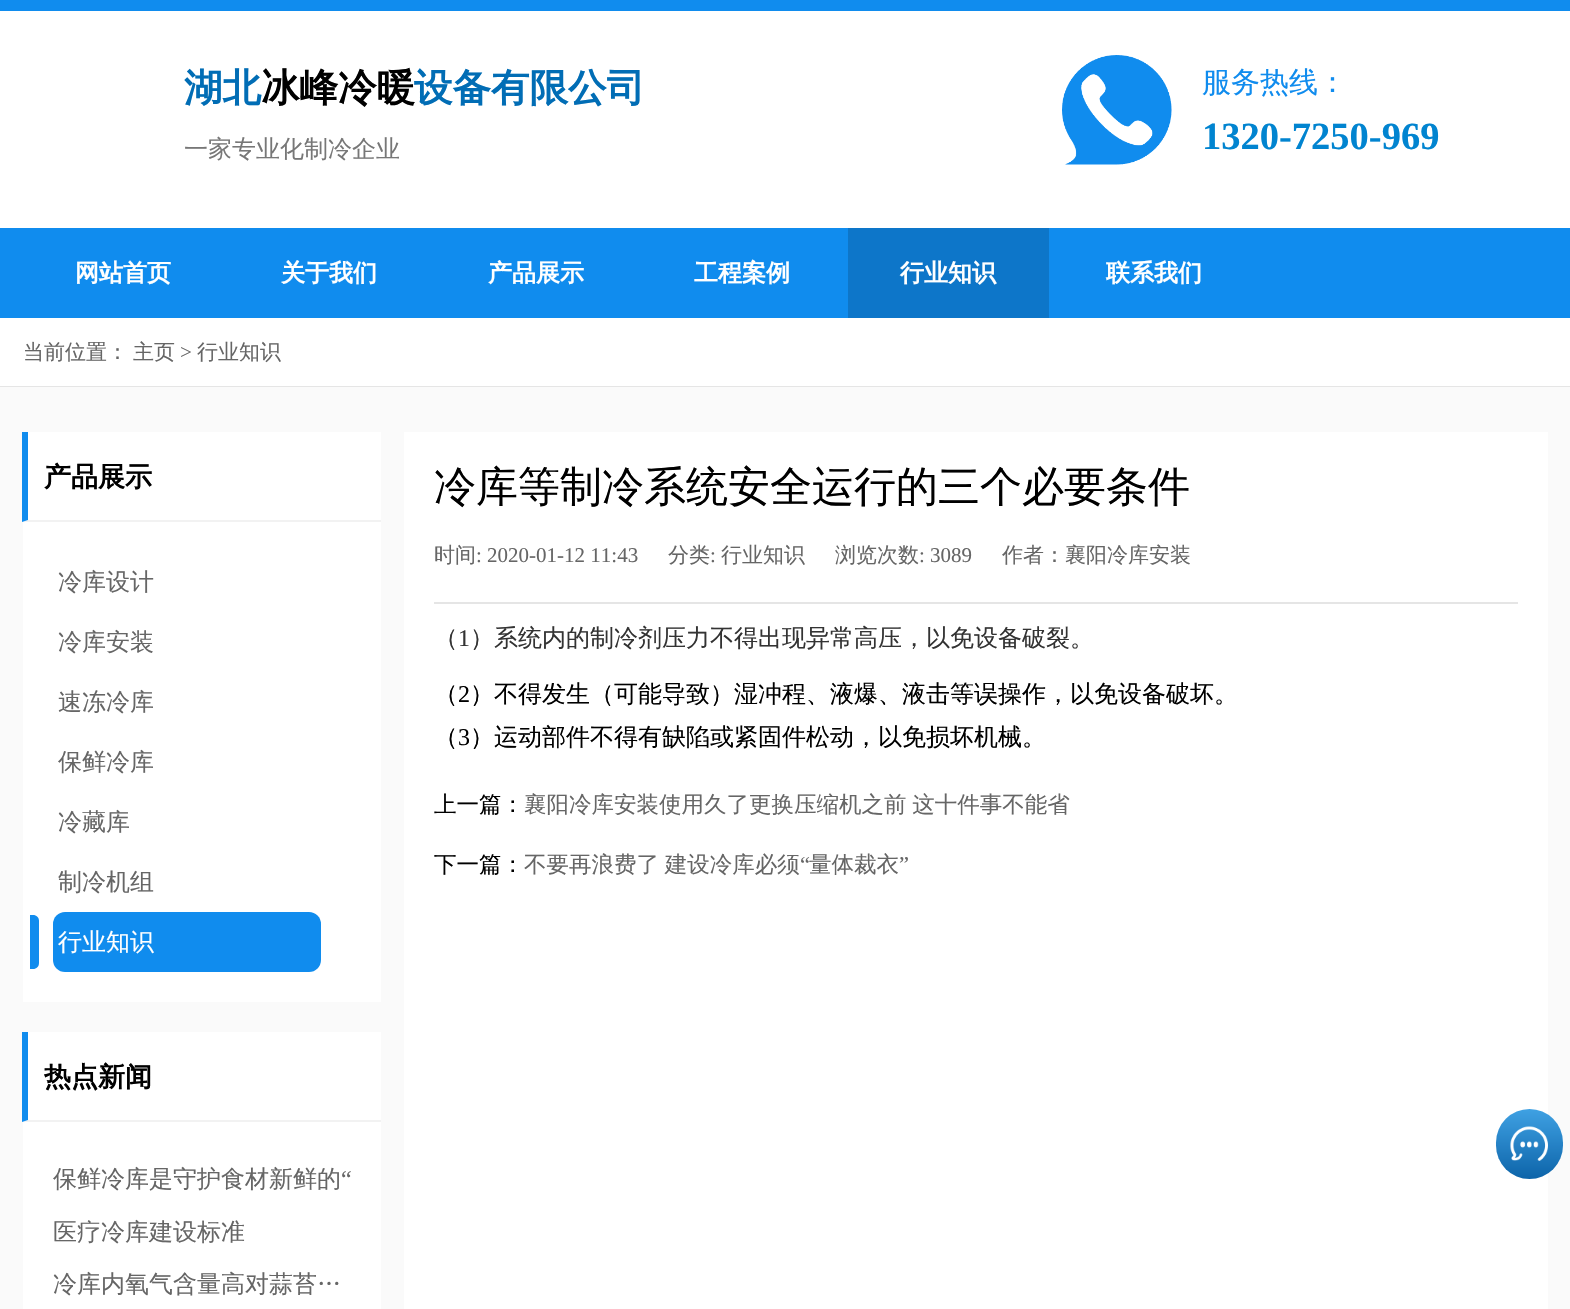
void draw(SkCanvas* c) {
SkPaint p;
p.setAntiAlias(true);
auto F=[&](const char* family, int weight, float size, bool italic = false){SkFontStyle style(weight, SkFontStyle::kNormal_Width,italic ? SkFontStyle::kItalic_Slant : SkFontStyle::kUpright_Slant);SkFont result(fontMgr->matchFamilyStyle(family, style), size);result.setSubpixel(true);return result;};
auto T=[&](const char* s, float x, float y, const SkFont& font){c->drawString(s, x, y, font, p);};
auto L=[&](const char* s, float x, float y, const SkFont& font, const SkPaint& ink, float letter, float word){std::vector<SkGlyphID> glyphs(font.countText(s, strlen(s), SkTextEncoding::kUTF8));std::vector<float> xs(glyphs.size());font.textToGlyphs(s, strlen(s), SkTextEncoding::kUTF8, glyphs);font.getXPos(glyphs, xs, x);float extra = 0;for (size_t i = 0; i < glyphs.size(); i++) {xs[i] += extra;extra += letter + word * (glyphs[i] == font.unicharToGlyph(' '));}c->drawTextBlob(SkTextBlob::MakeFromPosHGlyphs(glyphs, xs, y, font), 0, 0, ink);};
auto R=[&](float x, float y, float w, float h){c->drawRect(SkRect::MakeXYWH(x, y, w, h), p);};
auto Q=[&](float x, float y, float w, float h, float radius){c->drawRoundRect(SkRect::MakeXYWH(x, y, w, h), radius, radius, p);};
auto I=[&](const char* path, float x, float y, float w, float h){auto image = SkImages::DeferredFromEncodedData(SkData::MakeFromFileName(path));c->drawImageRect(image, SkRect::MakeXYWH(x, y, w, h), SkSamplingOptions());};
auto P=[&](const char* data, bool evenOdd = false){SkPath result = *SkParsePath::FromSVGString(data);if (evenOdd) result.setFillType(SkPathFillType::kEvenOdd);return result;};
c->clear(0xffffffff);
p.setColor(0xff108cee);
R(0,0,1570,11);
auto f1 = F("WenQuanYi Zen Hei",700,38.5);
p.setColor(0xff016db5);
T("湖北",184,101,f1);
p.setColor(0xff000000);
T("冰峰冷暖",261,101,f1);
p.setColor(0xff016db5);
T("设备有限公司",414,101,f1);
auto f2 = F("WenQuanYi Zen Hei",500,24);
p.setColor(0xff777777);
T("一家专业化制冷企业",184,157,f2);
I("1.png",1062,55,110,110);
auto f3 = F("WenQuanYi Zen Hei",500,29);
p.setColor(0xff108cee);
T("服务热线：",1202,92,f3);
auto f4 = F("Liberation Serif",700,38.5);
p.setColor(0xff0184d0);
T("1320-7250-969",1202,149,f4);
p.setColor(0xff108cee);
R(0,228,1570,90);
auto f5 = F("WenQuanYi Zen Hei",700,24);
p.setColor(0xffffffff);
T("网站首页",75,281,f5);
T("关于我们",281,281,f5);
T("产品展示",488,281,f5);
T("工程案例",694,281,f5);
p.setColor(0xff0d76c9);
R(848,228,201,90);
p.setColor(0xffffffff);
T("行业知识",900,281,f5);
T("联系我们",1106,281,f5);
p.setColor(0xffe5e5e5);
R(0,386,1570,1);
auto f6 = F("WenQuanYi Zen Hei",500,21);
p.setColor(0xff666666);
T("当前位置：",23,359,f6);
T("主页",133,359,f6);
auto f7 = F("Liberation Serif",400,21);
T(">",180,359,f7);
T("行业知识",197,359,f6);
p.setColor(0xfffafafa);
R(0,387,1570,922);
p.setColor(0xffffffff);
R(23,432,358,570);
p.setColor(0xfff2f2f2);
c->drawPath(P("M381 522h-359l6-2h353z"),p);
p.setColor(0xff108cee);
c->drawPath(P("M22 522v-90h6v88z"),p);
auto f8 = F("WenQuanYi Zen Hei",700,27);
p.setColor(0xff000000);
T("产品展示",44,486,f8);
p.setColor(0xff666666);
T("冷库设计",58,590,f2);
T("冷库安装",58,650,f2);
T("速冻冷库",58,710,f2);
T("保鲜冷库",58,770,f2);
T("冷藏库",58,830,f2);
T("制冷机组",58,890,f2);
p.setColor(0xff108cee);
Q(53,912,268,60,12);
c->drawPath(P("M30 915h3c3.5 0 6 2.5 6 6v42c0 3.5-2.5 6-6 6h-3z"),p);
p.setColor(0xffffffff);
T("行业知识",58,950,f2);
R(23,1032,358,277);
p.setColor(0xfff2f2f2);
c->drawPath(P("M381 1122h-359l6-2h353z"),p);
p.setColor(0xff108cee);
c->drawPath(P("M22 1122v-90h6v88z"),p);
p.setColor(0xff000000);
T("热点新闻",44,1086,f8);
p.setColor(0xff666666);
T("保鲜冷库是守护食材新鲜的",53,1187,f2);
auto f9 = F("Liberation Serif",400,24);
T("“",341,1187,f9);
T("医疗冷库建设标准",53,1240,f2);
T("冷库内氧气含量高对蒜苔…",53,1292,f2);
p.setColor(0xffffffff);
R(404,432,1144,877);
auto f10 = F("WenQuanYi Zen Hei",500,42);
p.setColor(0xff000000);
T("冷库等制冷系统安全运行的三个必要条件",434,501,f10);
p.setColor(0xff666666);
T("时间",434,562,f6);
T(": 2020-01-12 11:43",476,562,f7);
T("分类",668,562,f6);
T(":",710,562,f7);
T("行业知识",721,562,f6);
T("浏览次数",835,562,f6);
T(": 3089",919,562,f7);
T("作者：襄阳冷库安装",1002,562,f6);
p.setColor(0xffe5e5e5);
R(434,602,1084,2);
p.setColor(0xff333333);
T("（",434,646,f2);
T("1",458,646,f9);
T("）系统内的制冷剂压力不得出现异常高压，以免设备破裂。",470,646,f2);
p.setColor(0xff000000);
T("（",434,702,f2);
T("2",458,702,f9);
T("）不得发生（可能导致）湿冲程、液爆、液击等误操作，以免设备破坏。",470,702,f2);
T("（",434,745,f2);
T("3",458,745,f9);
T("）运动部件不得有缺陷或紧固件松动，以免损坏机械。",470,745,f2);
auto f11 = F("WenQuanYi Zen Hei",500,22.5);
T("上一篇：",434,812,f11);
p.setColor(0xff666666);
L("襄阳冷库安装使用久了更换压缩机之前 这十件事不能省",524,812,f11,p,0,-1);
p.setColor(0xff000000);
T("下一篇：",434,872,f11);
p.setColor(0xff666666);
L("不要再浪费了 建设冷库必须",524,872,f11,p,0,-1);
auto f12 = F("Liberation Serif",400,22.5);
T("“",800,872,f12);
T("量体裁衣",809,872,f11);
T("”",899,872,f12);
{
const SkColor colors[] = {0xff3fa1e3,0xff0d64a9};
const float stops[] = {0,1};
const SkPoint ends[] = {{1529,1109}, {1529,1179}};
p.setShader(SkGradientShader::MakeLinear(ends, colors, stops, 2, SkTileMode::kClamp));
p.setAlpha(255);
}
Q(1496,1109,67,70,33.5);
I("2.png",1510,1126,38,35);
}
